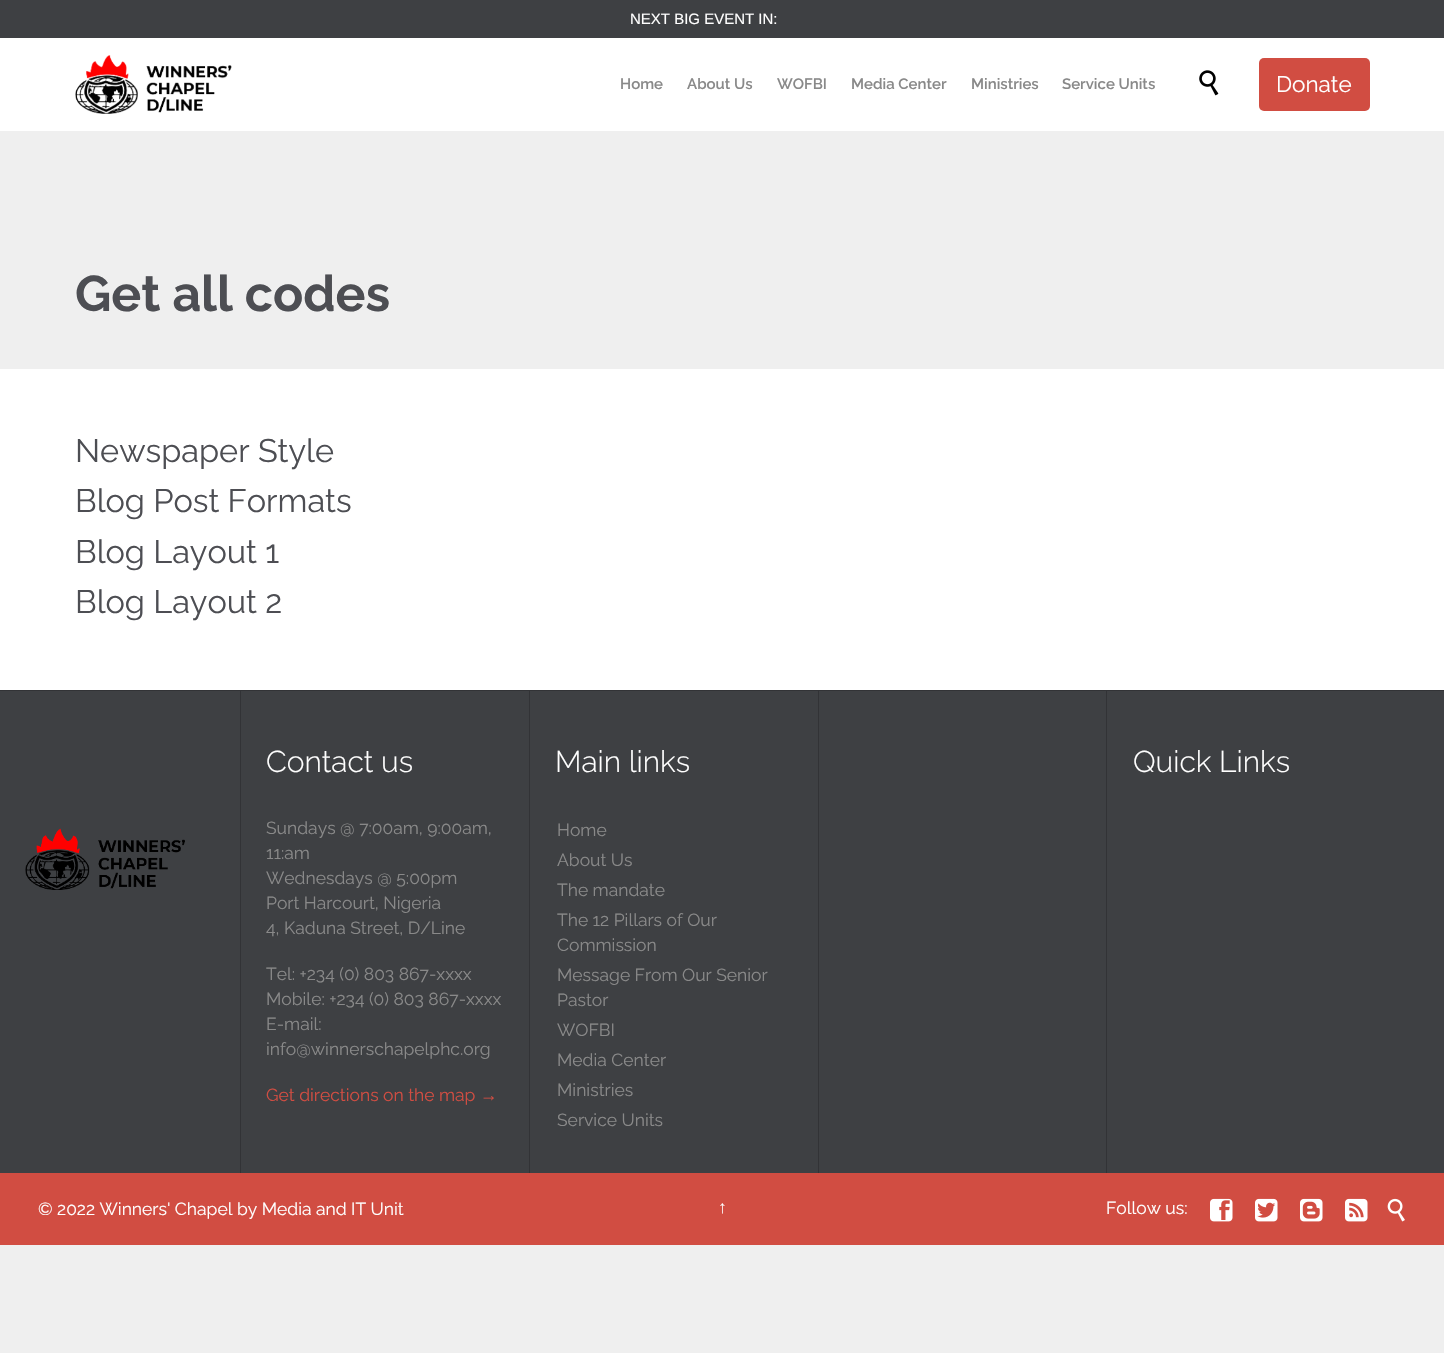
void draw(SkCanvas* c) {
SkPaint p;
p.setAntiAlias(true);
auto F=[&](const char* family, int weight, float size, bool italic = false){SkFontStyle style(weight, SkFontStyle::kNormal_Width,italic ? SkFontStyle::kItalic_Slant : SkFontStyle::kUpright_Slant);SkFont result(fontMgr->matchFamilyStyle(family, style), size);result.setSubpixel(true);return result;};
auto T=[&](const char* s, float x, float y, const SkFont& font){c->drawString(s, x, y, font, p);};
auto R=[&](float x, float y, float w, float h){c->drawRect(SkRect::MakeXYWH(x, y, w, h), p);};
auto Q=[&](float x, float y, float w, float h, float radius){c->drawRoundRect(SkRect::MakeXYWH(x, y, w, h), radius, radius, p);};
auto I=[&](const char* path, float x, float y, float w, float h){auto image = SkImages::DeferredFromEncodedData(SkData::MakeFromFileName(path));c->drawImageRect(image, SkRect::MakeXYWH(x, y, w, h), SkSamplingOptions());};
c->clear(0xffefefef);
p.setColor(0xffffffff);
R(0,38,1444,93);
p.setColor(0xff3e4043);
R(0,0,1444,38);
auto f1 = F("Liberation Sans",400,15);
p.setColor(0xffffffff);
T("NEXT BIG EVENT IN:",630,24,f1);
I("1.png",75,55,157,59);
auto f2 = F("Raleway",600,15);
p.setColor(0xff898989);
T("Home",620,89,f2);
T("About Us",687,89,f2);
T("WOFBI",777,89,f2);
T("Media Center",851,89,f2);
T("Ministries",971,89,f2);
T("Service Units",1062,89,f2);
I("2.png",1199,70,20,26);
p.setColor(0xffd14d42);
Q(1259,58,111,53,5);
auto f3 = F("Raleway",400,22.5);
p.setColor(0xffffffff);
T("Donate",1276,92,f3);
auto f4 = F("Raleway",700,50);
p.setColor(0xff4d4e53);
T("Get all codes",75,311,f4);
p.setColor(0xffffffff);
R(0,369,1444,321);
auto f5 = F("Raleway",400,32.5);
p.setColor(0xff4d4e53);
T("Newspaper Style",75,462,f5);
T("Blog Post Formats",75,512,f5);
T("Blog Layout 1",75,563,f5);
T("Blog Layout 2",75,613,f5);
p.setColor(0xff3e4043);
R(0,691,1444,482);
p.setColor(0xff323336);
R(0,690,1444,1);
R(240,691,1,482);
I("3.png",25,828,160,62);
R(529,691,1,482);
auto f6 = F("Raleway",300,30);
p.setColor(0xffffffff);
T("Contact us",266,772,f6);
auto f7 = F("Raleway",400,17.5);
p.setColor(0xff898989);
T("Sundays @ 7:00am, 9:00am,",266,834,f7);
T("11:am",266,859,f7);
T("Wednesdays @ 5:00pm",266,884,f7);
T("Port Harcourt, Nigeria",266,909,f7);
T("4, Kaduna Street, D/Line",266,934,f7);
T("Tel: +234 (0) 803 867-xxxx",266,980,f7);
T("Mobile: +234 (0) 803 867-xxxx",266,1005,f7);
T("E-mail:",266,1030,f7);
T("info@winnerschapelphc.org",266,1055,f7);
p.setColor(0xffd14d42);
T("Get directions on the map",266,1101,f7);
auto f8 = F("Liberation Serif",400,17.5);
T("→",480,1101,f8);
p.setColor(0xff323336);
R(818,691,1,482);
p.setColor(0xffffffff);
T("Main links",555,772,f6);
p.setColor(0xff898989);
T("Home",557,836,f7);
T("About Us",557,866,f7);
T("The mandate",557,896,f7);
T("The 12 Pillars of Our",557,926,f7);
T("Commission",557,951,f7);
T("Message From Our Senior",557,981,f7);
T("Pastor",557,1006,f7);
T("WOFBI",557,1036,f7);
T("Media Center",557,1066,f7);
T("Ministries",557,1096,f7);
T("Service Units",557,1126,f7);
p.setColor(0xff323336);
R(1106,691,1,482);
p.setColor(0xffffffff);
T("Quick Links",1133,772,f6);
p.setColor(0xffd14d42);
R(0,1173,1444,72);
p.setColor(0xffffffff);
T("© 2022 Winners' Chapel by Media and IT Unit",38,1215,f7);
T("↑",718,1213,f8);
T("Follow us:",1106,1214,f7);
I("4.png",1210,1198,23,24);
I("5.png",1255,1198,23,24);
I("6.png",1300,1198,23,24);
I("7.png",1345,1198,23,24);
I("8.png",1387,1198,18,24);
}
